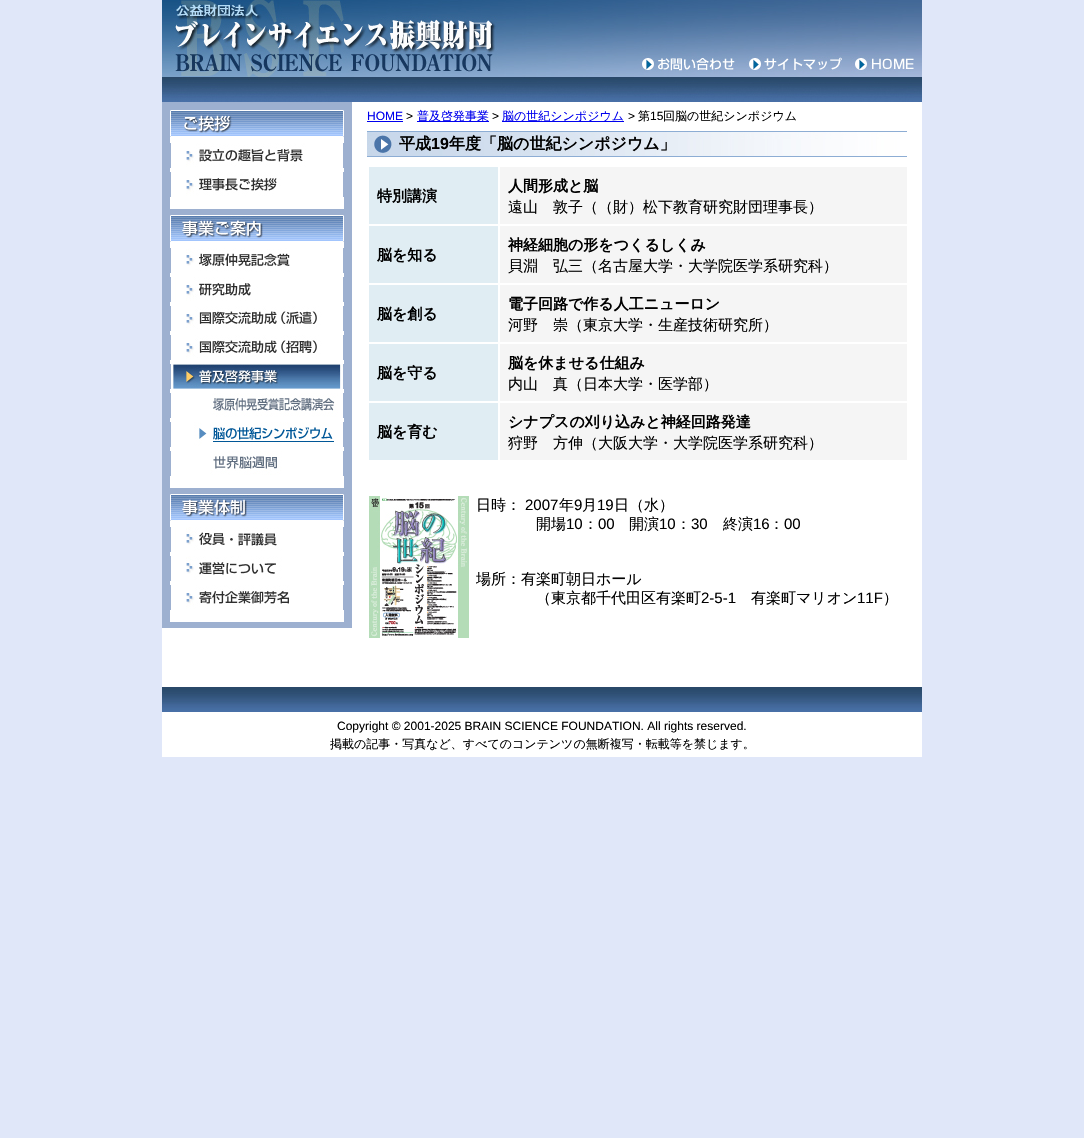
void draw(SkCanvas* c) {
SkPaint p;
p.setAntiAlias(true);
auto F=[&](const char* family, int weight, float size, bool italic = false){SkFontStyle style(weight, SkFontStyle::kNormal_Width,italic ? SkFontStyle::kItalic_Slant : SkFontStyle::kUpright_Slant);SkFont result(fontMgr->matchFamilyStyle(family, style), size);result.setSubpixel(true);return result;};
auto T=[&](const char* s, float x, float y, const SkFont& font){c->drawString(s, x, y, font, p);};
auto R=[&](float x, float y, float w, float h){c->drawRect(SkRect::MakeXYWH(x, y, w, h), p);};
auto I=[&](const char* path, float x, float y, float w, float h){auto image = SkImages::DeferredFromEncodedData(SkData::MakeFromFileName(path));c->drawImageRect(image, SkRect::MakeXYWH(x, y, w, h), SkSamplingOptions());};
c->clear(0xffe0e7f9);
p.setColor(0xffffffff);
R(162,102,760,655);
I("1.png",162,0,760,102);
p.setColor(0xff7ba0cc);
R(217,75,1,1);
p.setColor(0xff9db0d0);
R(162,102,190,526);
I("2.png",170,110,174,27);
p.setColor(0xffffffff);
R(170,137,174,72);
I("3.png",170,143,174,25);
I("4.png",170,172,174,25);
I("5.png",170,215,174,27);
R(170,242,174,246);
I("6.png",170,248,174,25);
I("7.png",170,277,174,25);
I("8.png",170,306,174,25);
I("9.png",170,335,174,25);
I("10.png",170,364,174,25);
I("11.png",170,393,174,25);
I("12.png",170,422,174,25);
I("13.png",170,451,174,25);
I("14.png",170,494,174,27);
R(170,521,174,101);
I("15.png",170,527,174,25);
I("16.png",170,556,174,25);
I("17.png",170,585,174,25);
auto f1 = F("Liberation Sans",400,12);
p.setColor(0xff0000ee);
T("HOME",367,120,f1);
R(367,121,36,1);
p.setColor(0xff000000);
T(">",406,120,f1);
p.setColor(0xff0000ee);
R(417,121,72,1);
auto f2 = F("WenQuanYi Zen Hei",500,12);
T("普及啓発事業",417,120,f2);
p.setColor(0xff000000);
T(">",492,120,f1);
p.setColor(0xff0000ee);
R(502,121,122,1);
T("脳の世紀シンポジウム",502,120,f2);
p.setColor(0xff000000);
T(">",628,120,f1);
T("第",638,120,f2);
T("15",650,120,f1);
T("回脳の世紀シンポジウム",663,120,f2);
I("18.png",367,131,540,26);
auto f3 = F("WenQuanYi Zen Hei",700,16);
T("平成",399,149,f3);
auto f4 = F("Liberation Sans",700,16);
T("19",431,149,f4);
T("年度「脳の世紀シンポジウム」",449,149,f3);
p.setColor(0xffe0edf3);
R(369,167,129,57);
auto f5 = F("WenQuanYi Zen Hei",700,15);
p.setColor(0xff000000);
T("特別講演",377,201,f5);
p.setColor(0xfff5f5f5);
R(500,167,407,57);
p.setColor(0xff000000);
T("人間形成と脳",508,191,f5);
auto f6 = F("WenQuanYi Zen Hei",500,15);
T("遠山　敦子（（財）松下教育研究財団理事長）",508,212,f6);
p.setColor(0xffe0edf3);
R(369,226,129,57);
p.setColor(0xff000000);
T("脳を知る",377,260,f5);
p.setColor(0xfff5f5f5);
R(500,226,407,57);
p.setColor(0xff000000);
T("神経細胞の形をつくるしくみ",508,250,f5);
T("貝淵　弘三（名古屋大学・大学院医学系研究科）",508,271,f6);
p.setColor(0xffe0edf3);
R(369,285,129,57);
p.setColor(0xff000000);
T("脳を創る",377,319,f5);
p.setColor(0xfff5f5f5);
R(500,285,407,57);
p.setColor(0xff000000);
T("電子回路で作る人工ニューロン",508,309,f5);
T("河野　崇（東京大学・生産技術研究所）",508,330,f6);
p.setColor(0xffe0edf3);
R(369,344,129,57);
p.setColor(0xff000000);
T("脳を守る",377,378,f5);
p.setColor(0xfff5f5f5);
R(500,344,407,57);
p.setColor(0xff000000);
T("脳を休ませる仕組み",508,368,f5);
T("内山　真（日本大学・医学部）",508,389,f6);
p.setColor(0xffe0edf3);
R(369,403,129,57);
p.setColor(0xff000000);
T("脳を育む",377,437,f5);
p.setColor(0xfff5f5f5);
R(500,403,407,57);
p.setColor(0xff000000);
T("シナプスの刈り込みと神経回路発達",508,427,f5);
T("狩野　方伸（大阪大学・大学院医学系研究科）",508,448,f6);
I("19.png",369,496,100,142);
T("日時：",476,510,f6);
auto f7 = F("Liberation Sans",400,15);
T("2007",525,510,f7);
T("年",559,510,f6);
T("9",574,510,f7);
T("月",582,510,f6);
T("19",597,510,f7);
T("日（水）",614,510,f6);
T("開場",536,529,f6);
T("10",566,529,f7);
T("：",583,529,f6);
T("00",598,529,f7);
T("開演",629,529,f6);
T("10",659,529,f7);
T("：",676,529,f6);
T("30",691,529,f7);
T("終演",723,529,f6);
T("16",753,529,f7);
T("：",769,529,f6);
T("00",784,529,f7);
T("場所：有楽町朝日ホール",476,584,f6);
T("（東京都千代田区有楽町",536,603,f6);
T("2-5-1",701,603,f7);
T("有楽町マリオン",751,603,f6);
T("11F",857,603,f7);
T("）",883,603,f6);
I("20.png",162,687,760,25);
T("Copyright © 2001-2025 BRAIN SCIENCE FOUNDATION. All rights reserved.",337,730,f1);
T("掲載の記事・写真など、すべてのコンテンツの無断複写・転載等を禁じます。",330,748,f2);
}
